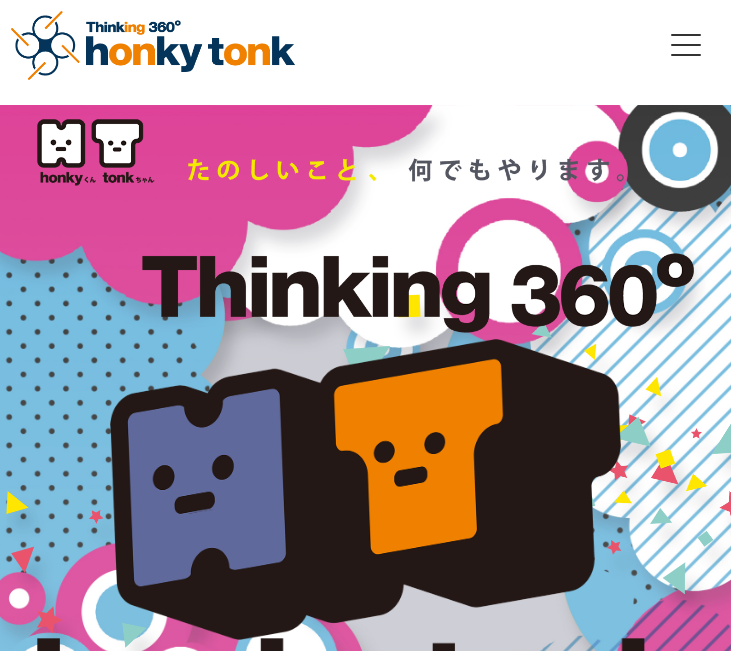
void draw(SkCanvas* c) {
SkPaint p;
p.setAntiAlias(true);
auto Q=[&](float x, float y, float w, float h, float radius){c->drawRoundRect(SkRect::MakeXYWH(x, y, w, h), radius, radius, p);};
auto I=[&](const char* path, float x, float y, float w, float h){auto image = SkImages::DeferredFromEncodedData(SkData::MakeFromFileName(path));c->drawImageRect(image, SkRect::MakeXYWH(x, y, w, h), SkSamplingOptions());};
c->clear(0xffffffff);
I("1.png",11,11,284,69);
p.setColor(0xff333333);
Q(671,34,30,2,1);
Q(671,44,30,2,1);
Q(671,54,30,2,1);
I("2.png",0,105,731,546);
I("4.png",6,294,725,357);
I("3.png",37,119,657,214);
I("6.png",37,638,608,13);
I("5.png",110,339,511,301);
}
